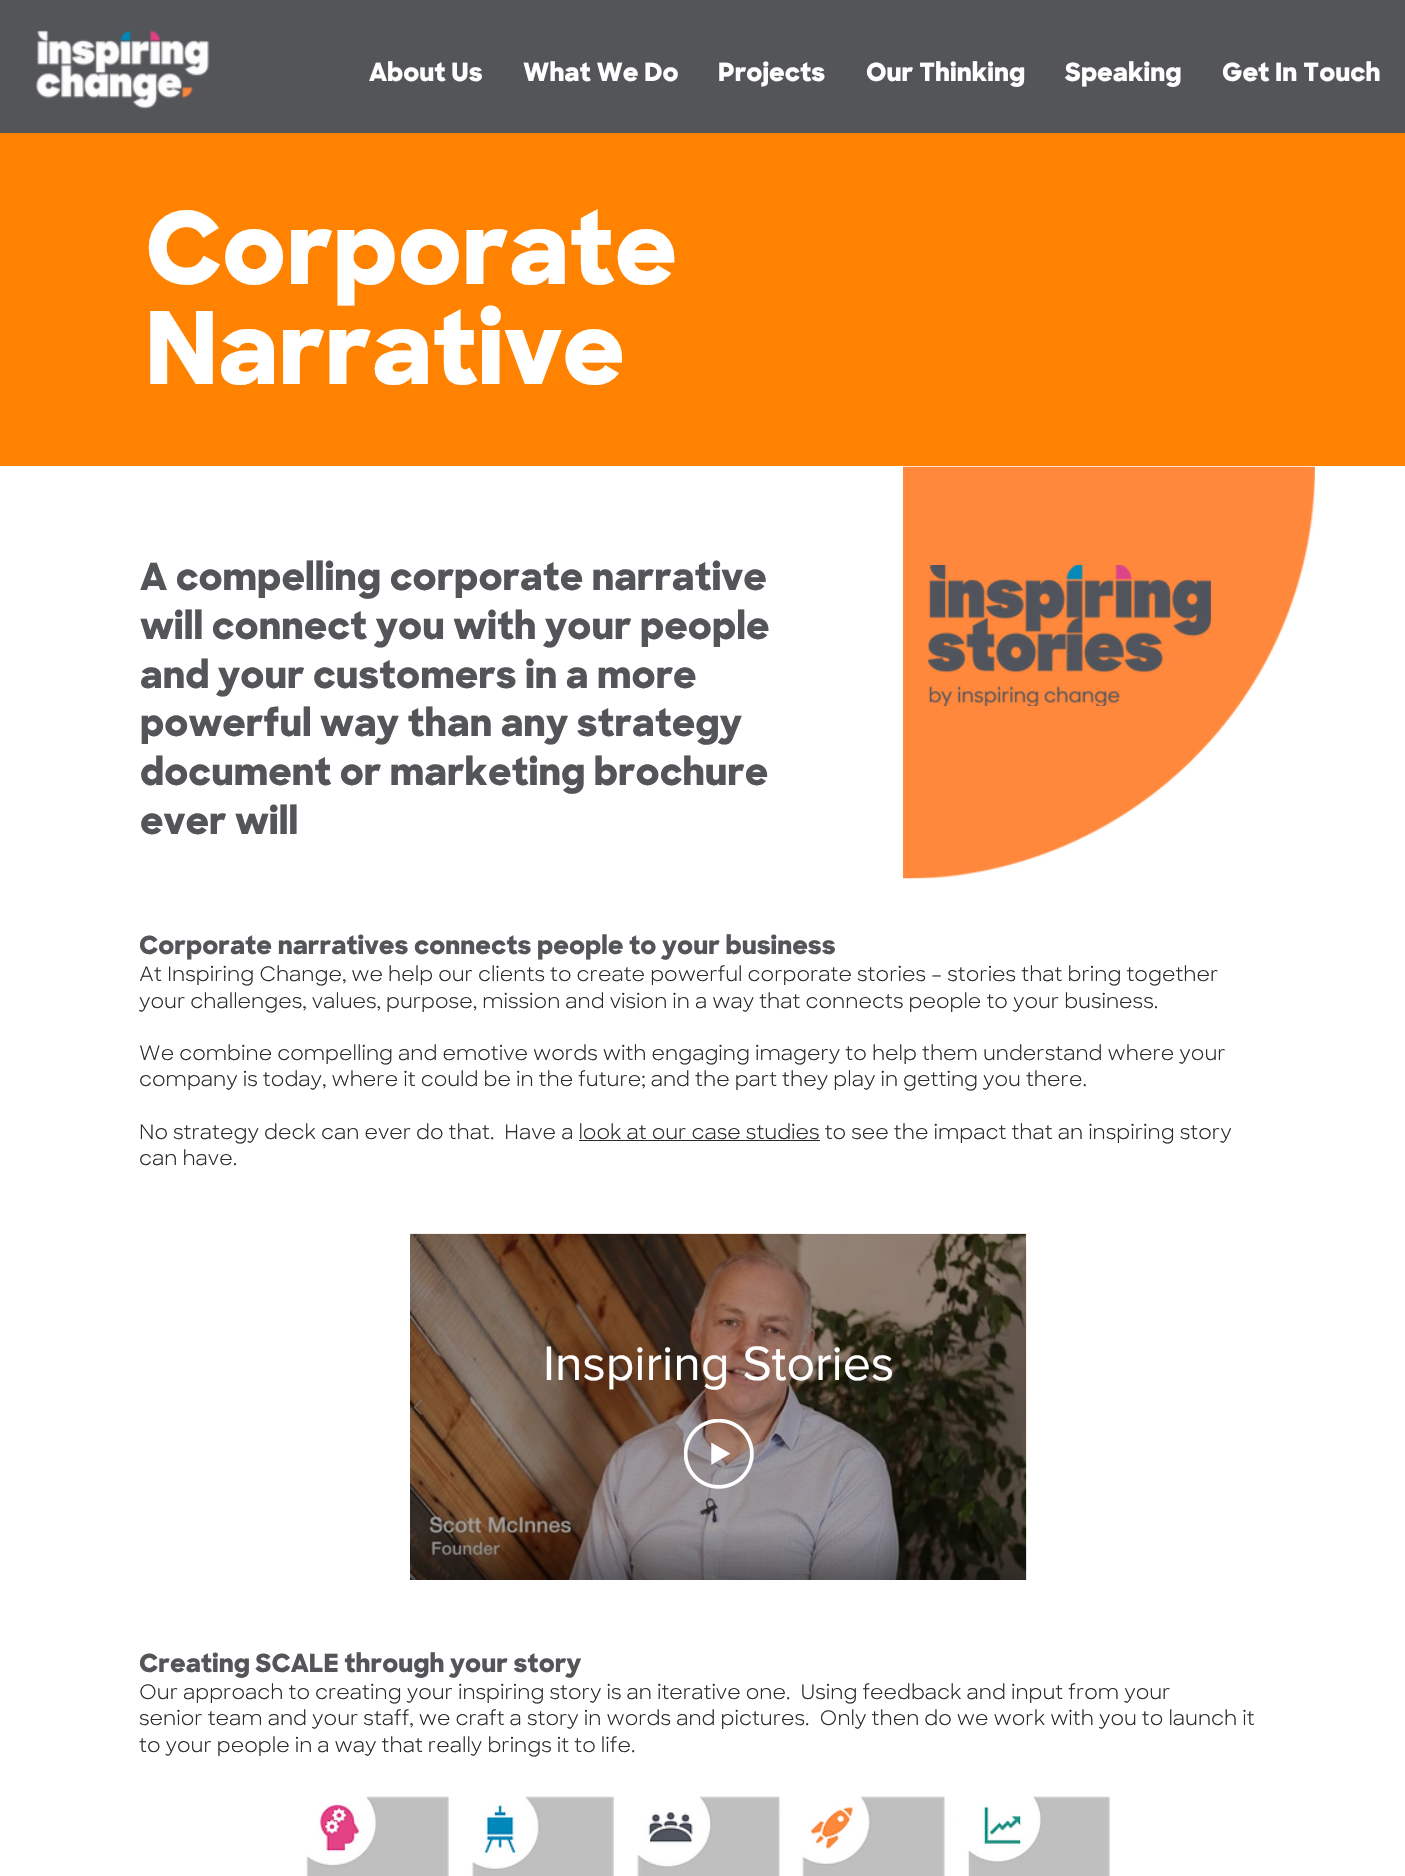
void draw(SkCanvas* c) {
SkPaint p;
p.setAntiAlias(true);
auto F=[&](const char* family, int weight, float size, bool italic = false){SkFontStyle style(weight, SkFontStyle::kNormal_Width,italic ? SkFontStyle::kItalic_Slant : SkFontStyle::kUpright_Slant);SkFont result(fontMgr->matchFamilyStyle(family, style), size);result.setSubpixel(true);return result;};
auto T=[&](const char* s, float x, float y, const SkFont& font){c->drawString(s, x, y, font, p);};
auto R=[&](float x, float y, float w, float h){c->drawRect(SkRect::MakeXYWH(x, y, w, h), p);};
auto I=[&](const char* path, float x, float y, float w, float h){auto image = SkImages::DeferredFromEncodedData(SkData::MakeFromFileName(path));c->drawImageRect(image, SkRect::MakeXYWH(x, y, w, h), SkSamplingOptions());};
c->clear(0xffffffff);
p.setColor(0xff535559);
R(0,0,1405,133);
I("1.png",35,30,175,79);
auto f1 = F("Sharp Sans",800,25);
p.setColor(0xffffffff);
T("About Us",369,81,f1);
T("What We Do",523,81,f1);
T("Projects",718,81,f1);
T("Our Thinking",866,81,f1);
T("Speaking",1065,81,f1);
T("Get In Touch",1222,81,f1);
p.setColor(0xffff8200);
R(0,133,1405,333);
auto f2 = F("Sharp Sans",800,100);
p.setColor(0xffffffff);
T("Corporate",145,284,f2);
T("Narrative",145,384,f2);
auto f3 = F("Sharp Sans",800,37.5);
p.setColor(0xff535559);
T("A compelling corporate narrative",140,590,f3);
T("will connect you with your people",140,639,f3);
T("and your customers in a more",140,688,f3);
T("powerful way than any strategy",140,736,f3);
T("document or marketing brochure",140,785,f3);
T("ever will",140,834,f3);
I("2.png",903,466,412,413);
I("3.png",927,565,284,141);
T("Corporate narratives connects people to your business",139,954,f1);
auto f4 = F("Sharp Sans",400,20);
p.setColor(0xff2a2a2d);
T("At Inspiring Change, we help our clients to create powerful corporate stories – stories that bring together",139,981,f4);
T("your challenges, values, purpose, mission and vision in a way that connects people to your business.",139,1008,f4);
T("We combine compelling and emotive words with engaging imagery to help them understand where your",139,1060,f4);
T("company is today, where it could be in the future; and the part they play in getting you there.",139,1086,f4);
T("No strategy deck can ever do that.  Have a look at our case studies to see the impact that an inspiring story",139,1139,f4);
R(579,1140,241,1);
T("can have.",139,1165,f4);
I("4.png",410,1233,617,347);
I("5.png",410,1233,617,347);
auto f5 = F("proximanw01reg",400,50);
p.setColor(0xffffffff);
T("Inspiring Stories",543,1380,f5);
I("6.png",684,1419,70,70);
p.setColor(0xff535559);
T("Creating SCALE through your story",139,1672,f1);
p.setColor(0xff2a2a2d);
T("Our approach to creating your inspiring story is an iterative one.  Using feedback and input from your",139,1699,f4);
T("senior team and your staff, we craft a story in words and pictures.  Only then do we work with you to launch it",139,1725,f4);
T("to your people in a way that really brings it to life.",139,1752,f4);
I("7.png",306,1796,805,80);
}
